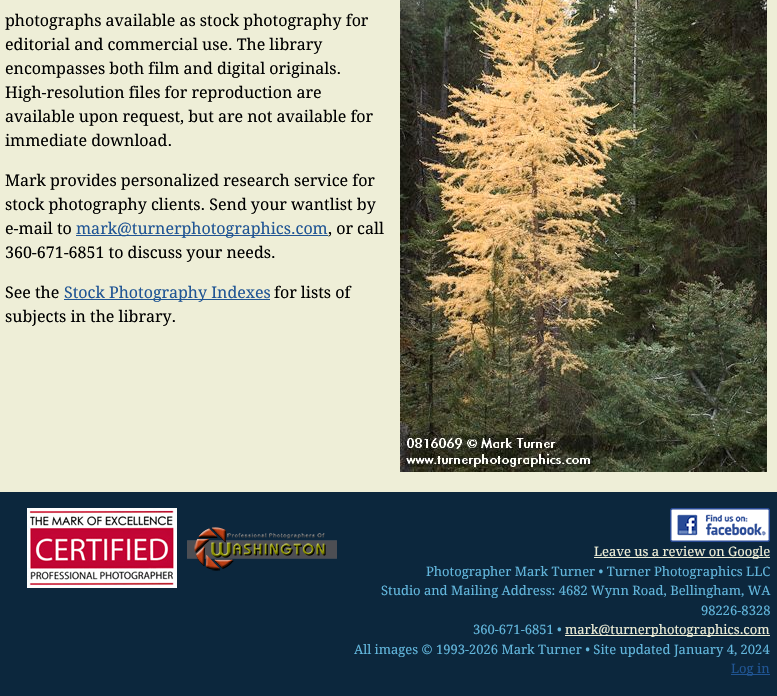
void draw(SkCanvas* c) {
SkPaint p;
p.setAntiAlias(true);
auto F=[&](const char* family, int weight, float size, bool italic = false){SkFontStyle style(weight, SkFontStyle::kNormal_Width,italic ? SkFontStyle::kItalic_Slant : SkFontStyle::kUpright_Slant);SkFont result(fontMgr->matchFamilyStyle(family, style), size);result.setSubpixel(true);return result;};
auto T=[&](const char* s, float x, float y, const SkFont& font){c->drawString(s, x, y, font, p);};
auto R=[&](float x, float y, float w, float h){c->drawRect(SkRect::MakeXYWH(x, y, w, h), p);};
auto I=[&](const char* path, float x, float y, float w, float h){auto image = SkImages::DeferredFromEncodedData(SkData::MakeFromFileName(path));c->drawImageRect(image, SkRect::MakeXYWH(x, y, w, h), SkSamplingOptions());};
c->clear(0xffeeeed7);
auto f1 = F("Droid Serif",400,16);
p.setColor(0xff000000);
T("photographs available as stock photography for",5,26,f1);
T("editorial and commercial use. The library",5,50,f1);
T("encompasses both film and digital originals.",5,74,f1);
T("High-resolution files for reproduction are",5,98,f1);
T("available upon request, but are not available for",5,122,f1);
T("immediate download.",5,146,f1);
I("1.png",400,0,367,472);
T("Mark provides personalized research service for",5,186,f1);
T("stock photography clients. Send your wantlist by",5,210,f1);
T("e-mail to",5,234,f1);
p.setColor(0xff205594);
R(76,235,252,1);
T("mark@turnerphotographics.com",76,234,f1);
p.setColor(0xff000000);
T(", or call",328,234,f1);
T("360-671-6851 to discuss your needs.",5,258,f1);
T("See the",5,298,f1);
p.setColor(0xff205594);
R(64,299,206,1);
T("Stock Photography Indexes",64,298,f1);
p.setColor(0xff000000);
T("for lists of",274,298,f1);
T("subjects in the library.",5,322,f1);
p.setColor(0xff0c273d);
R(0,492,777,204);
I("2.png",27,508,150,80);
I("3.png",187,527,150,44);
I("4.png",670,508,100,34);
p.setColor(0xffeeeed7);
R(594,557,176,1);
auto f2 = F("Droid Serif",400,13);
T("Leave us a review on Google",594,556,f2);
p.setColor(0xff62b6dc);
T("Photographer Mark Turner • Turner Photographics LLC",426,576,f2);
T("Studio and Mailing Address: 4682 Wynn Road, Bellingham, WA",381,595,f2);
T("98226-8328",701,615,f2);
T("360-671-6851 •",473,634,f2);
p.setColor(0xffeeeed7);
R(565,635,205,1);
T("mark@turnerphotographics.com",565,634,f2);
p.setColor(0xff62b6dc);
T("All images © 1993-2026 Mark Turner • Site updated January 4, 2024",354,654,f2);
p.setColor(0xff205594);
R(731,674,39,1);
T("Log in",731,673,f2);
}
